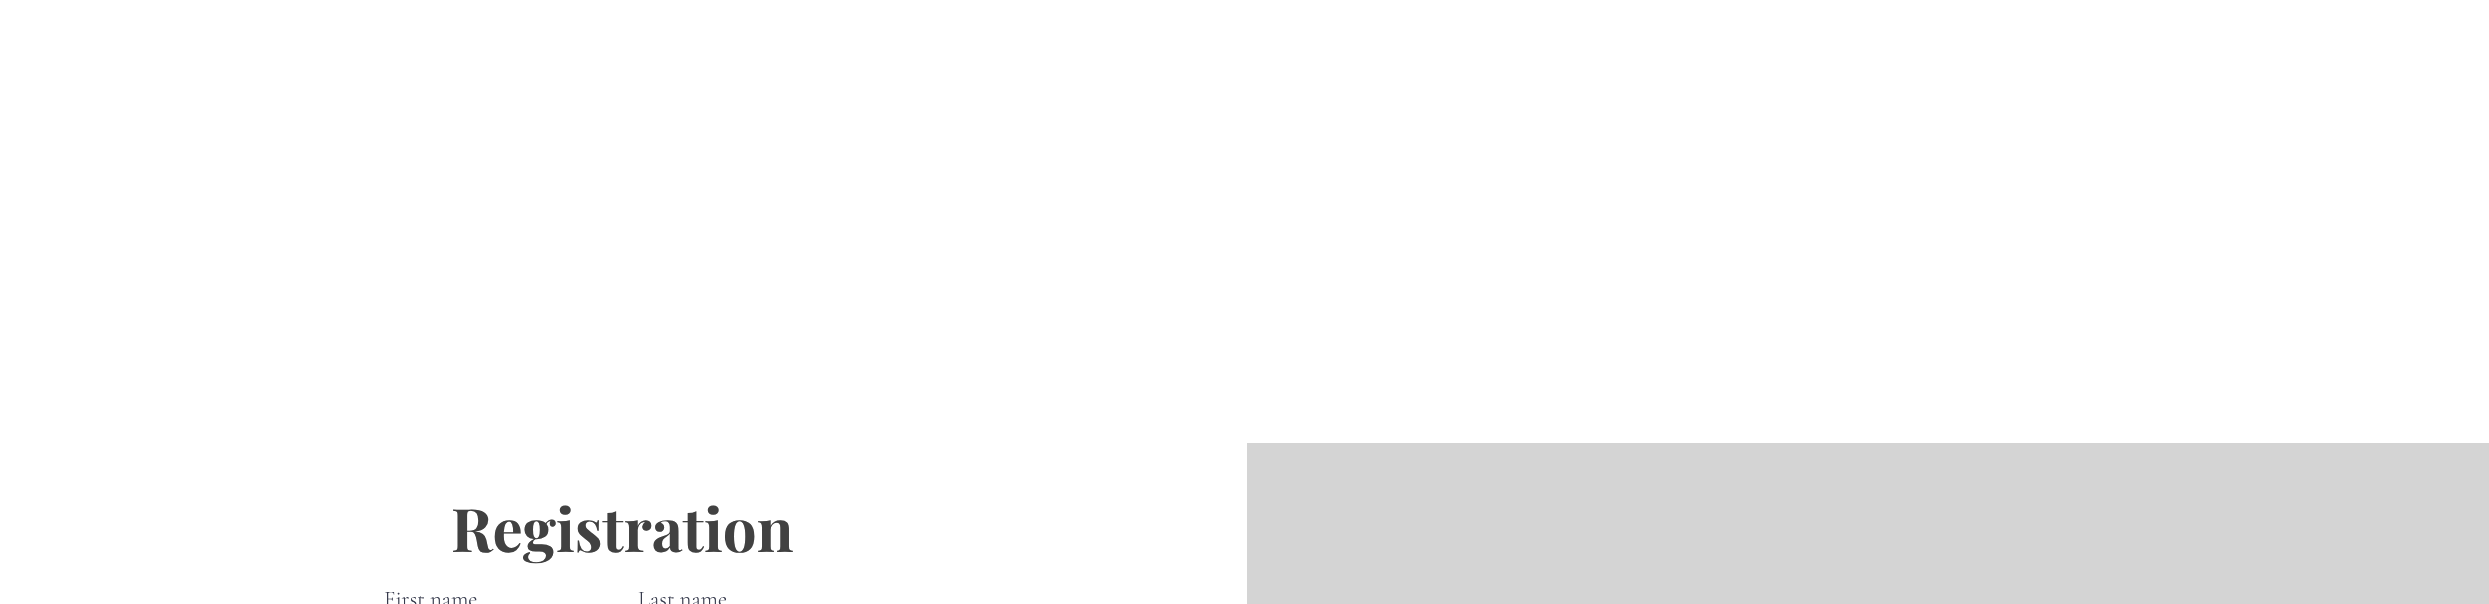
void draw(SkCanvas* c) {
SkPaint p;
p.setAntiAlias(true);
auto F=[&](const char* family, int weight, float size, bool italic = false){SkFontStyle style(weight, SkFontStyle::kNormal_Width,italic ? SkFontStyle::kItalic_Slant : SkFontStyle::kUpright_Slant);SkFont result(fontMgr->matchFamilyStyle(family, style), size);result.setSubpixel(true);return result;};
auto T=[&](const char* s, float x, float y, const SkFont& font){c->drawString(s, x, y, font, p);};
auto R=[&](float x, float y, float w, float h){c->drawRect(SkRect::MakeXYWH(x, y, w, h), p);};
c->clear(0xffffffff);
auto f1 = F("Playfair Display",700,60);
p.setColor(0xff414141);
T("Registration",451,552,f1);
auto f2 = F("Cormorant Garamond",300,22.5);
p.setColor(0xff373b4d);
T("First name",384,606,f2);
T("Last name",638,606,f2);
p.setColor(0xffd4d4d4);
R(1247,443,1242,161);
}
